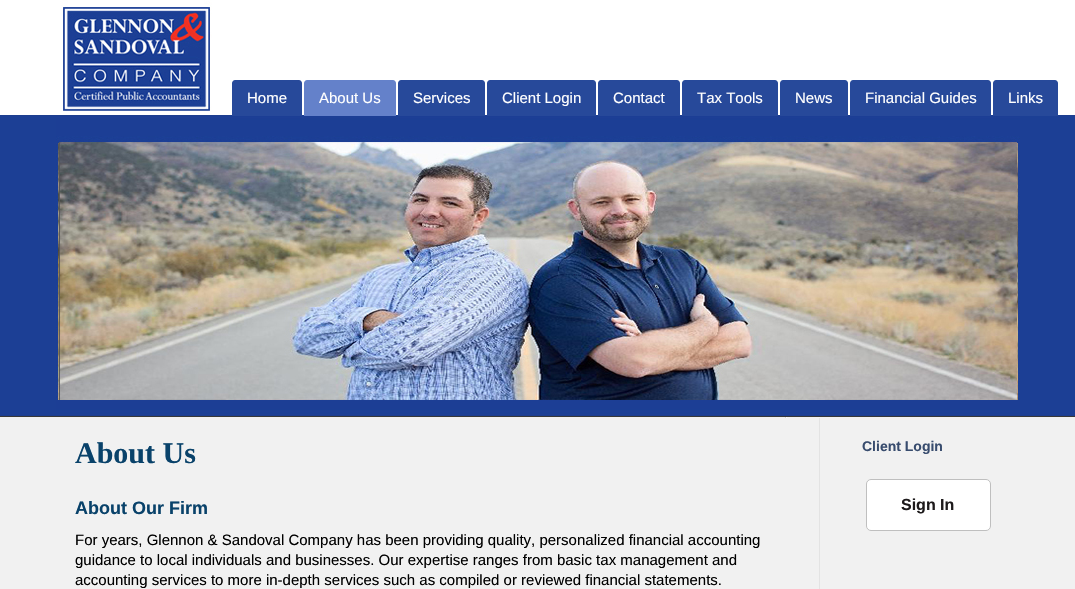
void draw(SkCanvas* c) {
SkPaint p;
p.setAntiAlias(true);
auto F=[&](const char* family, int weight, float size, bool italic = false){SkFontStyle style(weight, SkFontStyle::kNormal_Width,italic ? SkFontStyle::kItalic_Slant : SkFontStyle::kUpright_Slant);SkFont result(fontMgr->matchFamilyStyle(family, style), size);result.setSubpixel(true);return result;};
auto T=[&](const char* s, float x, float y, const SkFont& font){c->drawString(s, x, y, font, p);};
auto R=[&](float x, float y, float w, float h){c->drawRect(SkRect::MakeXYWH(x, y, w, h), p);};
auto I=[&](const char* path, float x, float y, float w, float h){auto image = SkImages::DeferredFromEncodedData(SkData::MakeFromFileName(path));c->drawImageRect(image, SkRect::MakeXYWH(x, y, w, h), SkSamplingOptions());};
auto P=[&](const char* data, bool evenOdd = false){SkPath result = *SkParsePath::FromSVGString(data);if (evenOdd) result.setFillType(SkPathFillType::kEvenOdd);return result;};
c->clear(0xfff1f1f1);
I("1.png",0,0,1075,417);
I("2.png",56,0,964,418);
p.setColor(0xff27499a);
c->drawPath(P("M235 80h64c1.5 0 3 1.5 3 3v33h-70v-33c0-1.5 1.5-3 3-3z"),p);
auto f1 = F("Liberation Sans",400,15);
p.setColor(0xffffffff);
T("Home",247,103,f1);
p.setColor(0xff6481ca);
c->drawPath(P("M307 80h86c1.5 0 3 1.5 3 3v33h-92v-33c0-1.5 1.5-3 3-3z"),p);
p.setColor(0xffffffff);
T("About Us",319,103,f1);
p.setColor(0xff27499a);
c->drawPath(P("M401 80h81c1.5 0 3 1.5 3 3v33h-87v-33c0-1.5 1.5-3 3-3z"),p);
p.setColor(0xffffffff);
T("Services",413,103,f1);
p.setColor(0xff27499a);
c->drawPath(P("M490 80h103c1.5 0 3 1.5 3 3v33h-109v-33c0-1.5 1.5-3 3-3z"),p);
p.setColor(0xffffffff);
T("Client Login",502,103,f1);
p.setColor(0xff27499a);
c->drawPath(P("M601 80h76c1.5 0 3 1.5 3 3v33h-82v-33c0-1.5 1.5-3 3-3z"),p);
p.setColor(0xffffffff);
T("Contact",613,103,f1);
p.setColor(0xff27499a);
c->drawPath(P("M685 80h90c1.5 0 3 1.5 3 3v33h-96v-33c0-1.5 1.5-3 3-3z"),p);
p.setColor(0xffffffff);
T("Tax Tools",697,103,f1);
p.setColor(0xff27499a);
c->drawPath(P("M783 80h62c1.5 0 3 1.5 3 3v33h-68v-33c0-1.5 1.5-3 3-3z"),p);
p.setColor(0xffffffff);
T("News",795,103,f1);
p.setColor(0xff27499a);
c->drawPath(P("M853 80h135c1.5 0 3 1.5 3 3v33h-141v-33c0-1.5 1.5-3 3-3z"),p);
p.setColor(0xffffffff);
T("Financial Guides",865,103,f1);
p.setColor(0xff27499a);
c->drawPath(P("M996 80h59c1.5 0 3 1.5 3 3v33h-65v-33c0-1.5 1.5-3 3-3z"),p);
p.setColor(0xffffffff);
T("Links",1008,103,f1);
auto f2 = F("Liberation Serif",700,30);
p.setColor(0xff09426a);
T("About Us",75,463,f2);
auto f3 = F("Liberation Sans",700,18);
T("About Our Firm",75,514,f3);
p.setColor(0xff000000);
T("For years, Glennon & Sandoval Company has been providing quality, personalized financial accounting",75,545,f1);
T("guidance to local individuals and businesses. Our expertise ranges from basic tax management and",75,565,f1);
T("accounting services to more in-depth services such as compiled or reviewed financial statements.",75,585,f1);
p.setColor(0xffe3e3e3);
R(819,418,1,171);
auto f4 = F("Liberation Sans",700,14);
p.setColor(0xff384c6e);
T("Client Login",862,451,f4);
p.setColor(0xffffffff);
c->drawRoundRect(SkRect::MakeXYWH(866.5,479.5,124,51),4.5,4.5,p);
p.setStroke(true);
p.setStrokeWidth(1);
p.setColor(0xffbfbfbf);
c->drawRoundRect(SkRect::MakeXYWH(866.5,479.5,124,51),4.5,4.5,p);
auto f5 = F("Liberation Sans",700,16);
p.setStroke(false);
p.setColor(0xff1d1a1b);
T("Sign In",901,510,f5);
}
